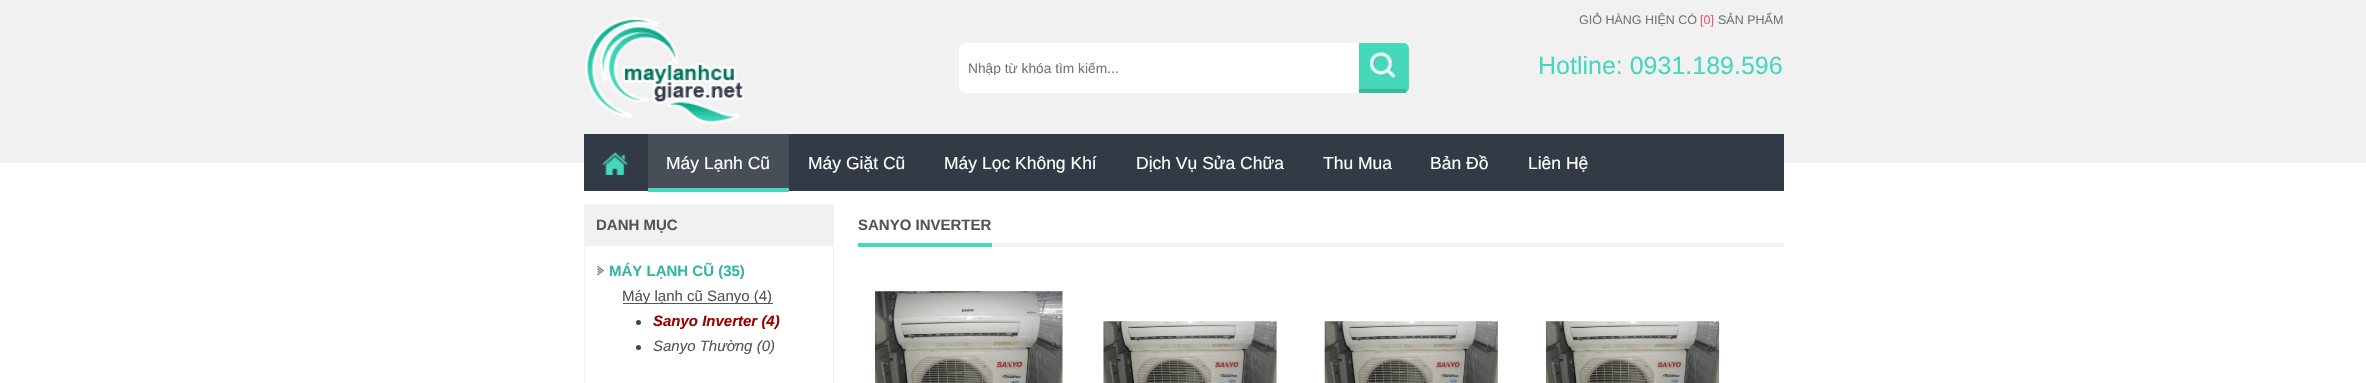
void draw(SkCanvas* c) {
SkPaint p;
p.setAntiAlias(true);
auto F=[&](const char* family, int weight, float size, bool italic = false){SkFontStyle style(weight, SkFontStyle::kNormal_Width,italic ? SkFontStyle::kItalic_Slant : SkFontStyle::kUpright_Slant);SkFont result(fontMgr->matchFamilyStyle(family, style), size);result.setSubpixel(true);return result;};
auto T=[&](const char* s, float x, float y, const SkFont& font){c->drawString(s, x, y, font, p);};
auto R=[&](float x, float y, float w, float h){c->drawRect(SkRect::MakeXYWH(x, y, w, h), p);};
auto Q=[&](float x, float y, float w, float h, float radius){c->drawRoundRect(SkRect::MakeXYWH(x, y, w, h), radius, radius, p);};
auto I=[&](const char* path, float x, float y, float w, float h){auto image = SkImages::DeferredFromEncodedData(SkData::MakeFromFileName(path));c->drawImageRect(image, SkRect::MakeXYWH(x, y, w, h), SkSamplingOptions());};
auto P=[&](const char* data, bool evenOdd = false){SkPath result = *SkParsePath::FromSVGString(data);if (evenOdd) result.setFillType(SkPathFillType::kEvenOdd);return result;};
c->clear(0xffffffff);
p.setColor(0xfff1f1f1);
R(0,0,2366,163);
I("1.png",585,17,160,107);
auto f1 = F("Liberation Sans",400,12.5);
p.setColor(0xff757575);
T("GIỎ HÀNG HIỆN CÓ",1579,24,f1);
p.setColor(0xffe75768);
T("[0]",1700,24,f1);
p.setColor(0xff757575);
T("SẢN PHẨM",1718,24,f1);
p.setColor(0xffffffff);
Q(959,43,450,50,6);
c->save();
c->clipRect(SkRect::MakeXYWH(969,60,380,15));
auto f2 = F("Liberation Sans",400,13.75);
p.setColor(0xff757575);
T("Nhập từ khóa tìm kiếm...",968,73,f2);
c->restore();
p.setColor(0xff45d8bb);
c->drawPath(P("M1359 43h44c3.5 0 6 2.5 6 6v38c0 3.5-2.5 6-6 6h-44z"),p);
I("2.png",1370,52,26,27);
p.setColor(0xff3bb89f);
R(1359,89,47,4);
auto f3 = F("Liberation Sans",400,25);
p.setColor(0xff45d8bb);
T("Hotline: 0931.189.596",1538,74,f3);
p.setColor(0xff323a45);
R(584,134,1200,57);
I("3.png",602,152,26,23);
p.setColor(0xff474e58);
R(648,134,141,54);
p.setColor(0xff45d8bb);
R(648,188,141,4);
auto f4 = F("Liberation Sans",400,17.5);
p.setColor(0xffffffff);
T("Máy Lạnh Cũ",666,169,f4);
T("Máy Giặt Cũ",808,169,f4);
T("Máy Lọc Không Khí",944,169,f4);
T("Dịch Vụ Sửa Chữa",1136,169,f4);
T("Thu Mua",1323,169,f4);
T("Bản Đồ",1430,169,f4);
T("Liên Hệ",1528,169,f4);
p.setColor(0xfff1f1f1);
R(584,204,250,42);
auto f5 = F("Liberation Sans",700,15);
p.setColor(0xff555555);
T("DANH MỤC",596,230,f5);
p.setColor(0xfff1f1f1);
R(833,246,1,137);
R(584,246,1,137);
I("4.png",597,266,7,9);
p.setColor(0xff34b69c);
T("MÁY LẠNH CŨ (35)",609,276,f5);
p.setColor(0xff555555);
R(623,303,150,1);
auto f6 = F("Liberation Sans",400,15);
T("Máy lạnh cũ Sanyo (4)",622,301,f6);
p.setColor(0xff444444);
c->drawCircle(638.5,322.5,2.5,p);
auto f7 = F("Liberation Sans",700,15,true);
p.setColor(0xff990000);
T("Sanyo Inverter (4)",653,326,f7);
p.setColor(0xff444444);
c->drawCircle(638.5,347.5,2.5,p);
auto f8 = F("Liberation Sans",400,15,true);
p.setColor(0xff555555);
T("Sanyo Thường (0)",653,351,f8);
p.setColor(0xfff1f1f1);
R(992,243,792,4);
p.setColor(0xff45d8bb);
R(858,243,134,4);
p.setColor(0xff555555);
T("SANYO INVERTER",858,230,f5);
I("5.png",875,291,188,92);
I("6.png",1103,321,174,62);
I("7.png",1324,321,175,62);
I("8.png",1545,321,175,62);
}
